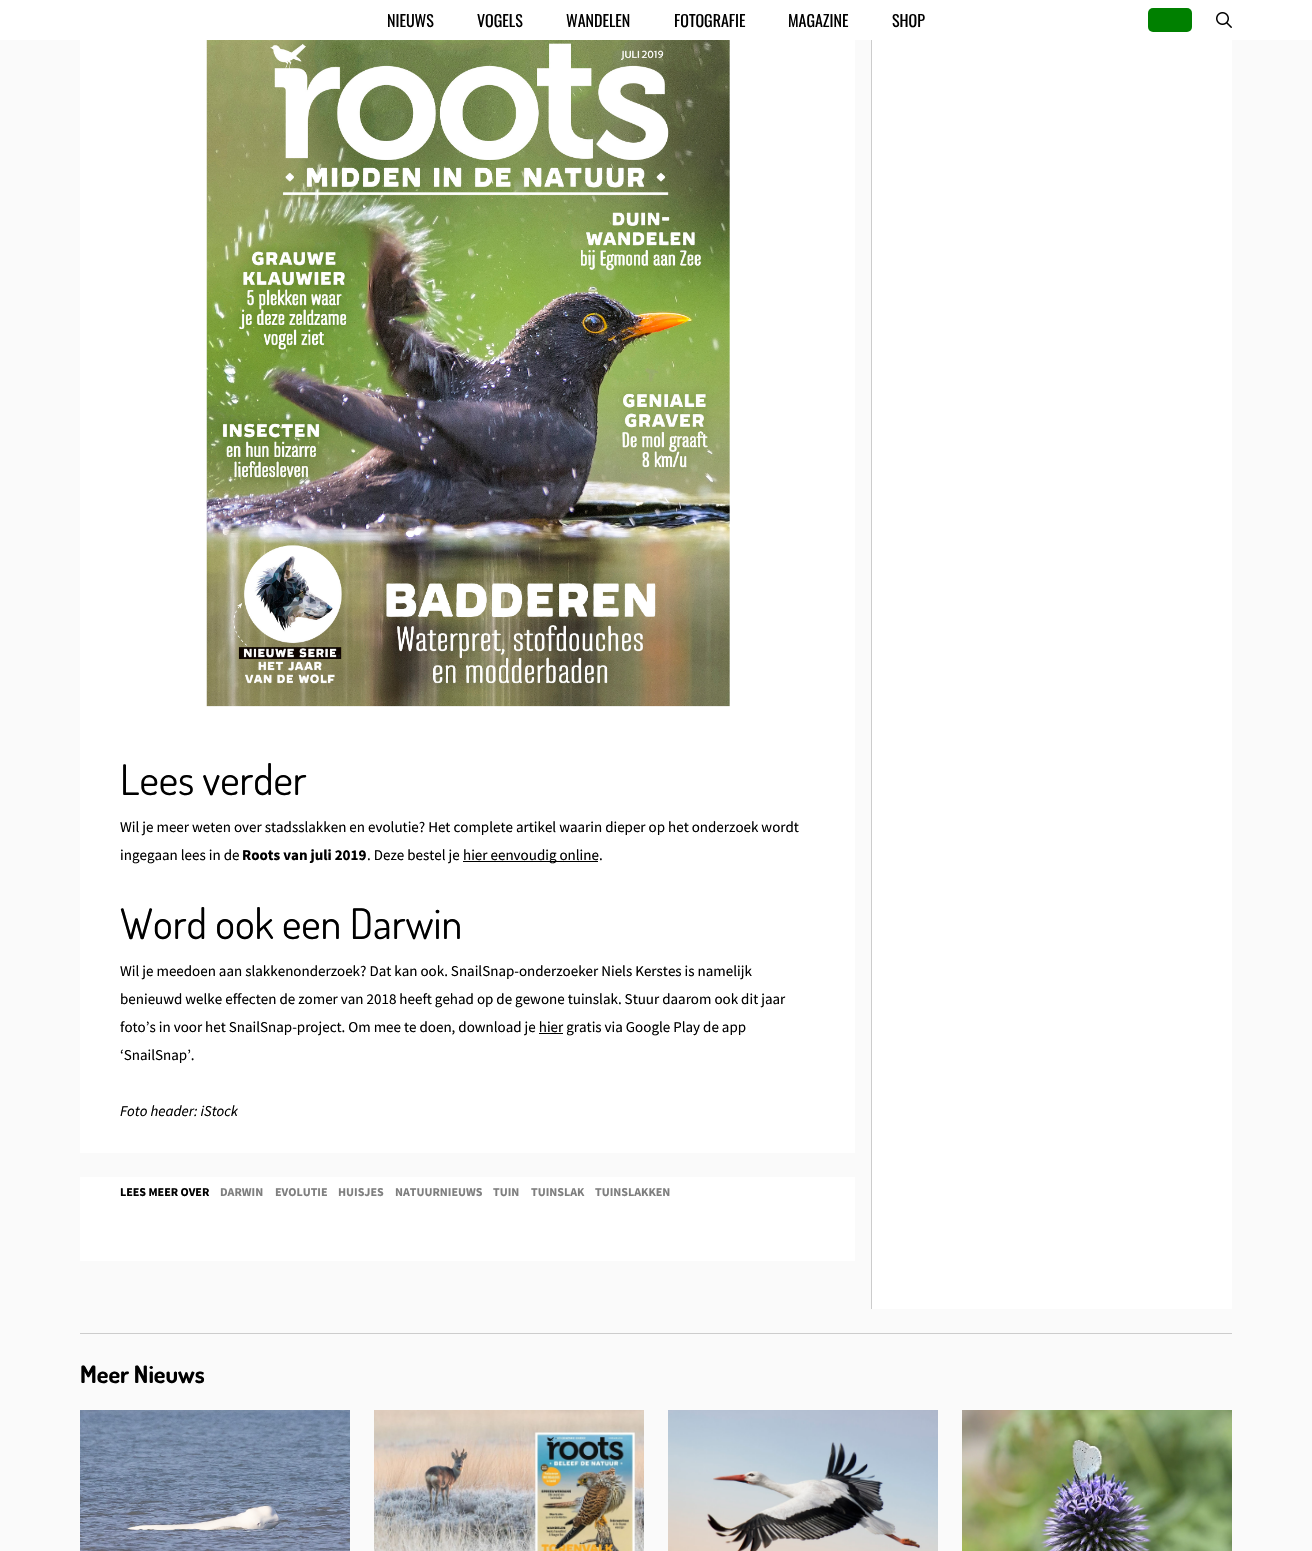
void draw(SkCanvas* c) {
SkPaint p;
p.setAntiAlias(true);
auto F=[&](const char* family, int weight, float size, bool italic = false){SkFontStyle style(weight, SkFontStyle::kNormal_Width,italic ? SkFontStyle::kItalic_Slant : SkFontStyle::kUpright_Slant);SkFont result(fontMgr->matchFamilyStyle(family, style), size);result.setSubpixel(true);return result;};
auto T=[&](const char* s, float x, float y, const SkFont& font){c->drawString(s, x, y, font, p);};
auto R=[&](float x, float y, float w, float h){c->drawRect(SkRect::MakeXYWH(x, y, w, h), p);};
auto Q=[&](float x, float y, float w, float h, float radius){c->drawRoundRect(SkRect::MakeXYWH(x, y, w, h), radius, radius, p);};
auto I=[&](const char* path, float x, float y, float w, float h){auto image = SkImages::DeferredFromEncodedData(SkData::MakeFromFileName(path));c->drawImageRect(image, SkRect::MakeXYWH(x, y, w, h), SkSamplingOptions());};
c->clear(0xfffafafa);
p.setColor(0xffffffff);
R(0,0,1312,40);
auto f1 = F("Oswald",400,16);
p.setColor(0xff000000);
T("NIEUWS",387,27,f1);
T("VOGELS",477,27,f1);
T("WANDELEN",566,27,f1);
T("FOTOGRAFIE",674,27,f1);
T("MAGAZINE",788,27,f1);
T("SHOP",892,27,f1);
p.setColor(0xff008000);
Q(1148,8,44,24,5);
I("1.png",1216,12,16,16);
p.setColor(0xffcccccc);
R(871,40,1,1269);
p.setColor(0xffffffff);
R(80,40,775,1113);
I("2.png",206,40,524,667);
auto f2 = F("Dosis",400,42);
p.setColor(0xff000000);
T("Lees verder",120,795,f2);
auto f3 = F("Source Sans Pro",400,15);
T("Wil je meer weten over stadsslakken en evolutie? Het complete artikel waarin dieper op het onderzoek wordt",120,832,f3);
T("ingegaan lees in de",120,860,f3);
auto f4 = F("Source Sans Pro",700,15);
T("Roots van juli 2019",242,860,f4);
T(". Deze bestel je",367,860,f3);
R(463,861,135,1);
T("hier eenvoudig online.",463,860,f3);
T("Word ook een Darwin",120,939,f2);
T("Wil je meedoen aan slakkenonderzoek? Dat kan ook. SnailSnap-onderzoeker Niels Kerstes is namelijk",120,976,f3);
T("benieuwd welke effecten de zomer van 2018 heeft gehad op de gewone tuinslak. Stuur daarom ook dit jaar",120,1004,f3);
T("foto’s in voor het SnailSnap-project. Om mee te doen, download je hier gratis via Google Play de app",120,1032,f3);
R(539,1033,24,1);
T("‘SnailSnap’.",120,1060,f3);
auto f5 = F("Source Sans Pro",400,15,true);
T("Foto header: iStock",120,1116,f5);
p.setColor(0xffffffff);
R(80,1177,775,84);
auto f6 = F("Source Sans Pro",700,12);
p.setColor(0xff000000);
T("LEES MEER OVER",120,1196,f6);
p.setColor(0xff7f7f7f);
T("DARWIN",220,1196,f6);
T("EVOLUTIE",275,1196,f6);
T("HUISJES",338,1196,f6);
T("NATUURNIEUWS",395,1196,f6);
T("TUIN",493,1196,f6);
T("TUINSLAK",531,1196,f6);
T("TUINSLAKKEN",595,1196,f6);
p.setColor(0xffffffff);
R(872,40,360,1269);
p.setColor(0xffcccccc);
R(80,1333,1152,1);
auto f7 = F("Dosis",700,24);
p.setColor(0xff000000);
T("Meer Nieuws",80,1383,f7);
I("3.png",80,1410,270,141);
I("4.png",374,1410,270,141);
I("5.png",668,1410,270,141);
I("6.png",962,1410,270,141);
}
